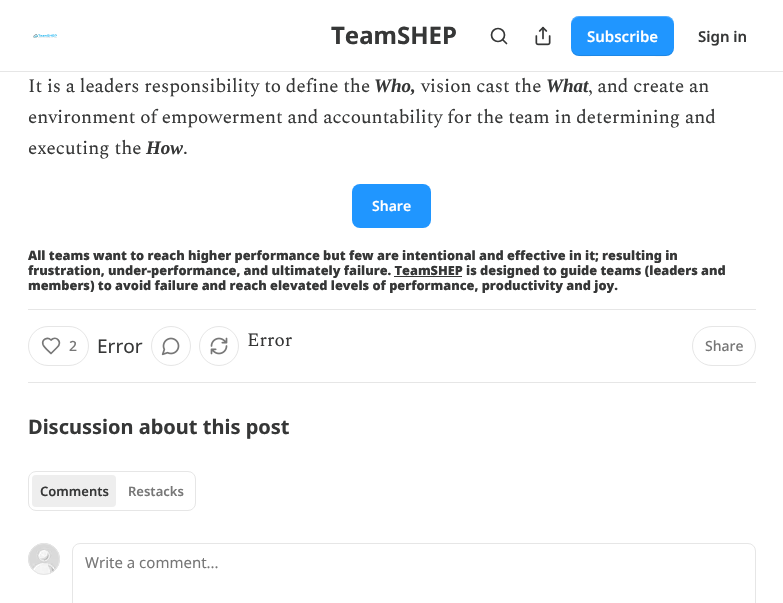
void draw(SkCanvas* c) {
SkPaint p;
p.setAntiAlias(true);
auto F=[&](const char* family, int weight, float size, bool italic = false){SkFontStyle style(weight, SkFontStyle::kNormal_Width,italic ? SkFontStyle::kItalic_Slant : SkFontStyle::kUpright_Slant);SkFont result(fontMgr->matchFamilyStyle(family, style), size);result.setSubpixel(true);return result;};
auto T=[&](const char* s, float x, float y, const SkFont& font){c->drawString(s, x, y, font, p);};
auto R=[&](float x, float y, float w, float h){c->drawRect(SkRect::MakeXYWH(x, y, w, h), p);};
auto Q=[&](float x, float y, float w, float h, float radius){c->drawRoundRect(SkRect::MakeXYWH(x, y, w, h), radius, radius, p);};
auto I=[&](const char* path, float x, float y, float w, float h){auto image = SkImages::DeferredFromEncodedData(SkData::MakeFromFileName(path));c->drawImageRect(image, SkRect::MakeXYWH(x, y, w, h), SkSamplingOptions());};
auto P=[&](const char* data, bool evenOdd = false){SkPath result = *SkParsePath::FromSVGString(data);if (evenOdd) result.setFillType(SkPathFillType::kEvenOdd);return result;};
c->clear(0xffffffff);
p.setColor(0xffe6e6e6);
R(0,71,783,1);
I("1.png",33,34,24,4);
auto f1 = F("Noto Sans",700,24);
p.setColor(0xff363737);
T("TeamSHEP",331,44,f1);
p.setStroke(true);
p.setStrokeWidth(1.7);
c->drawCircle(498,35,6.5,p);
p.setStrokeCap(SkPaint::kRound_Cap);
p.setStrokeJoin(SkPaint::kRound_Join);
c->drawPath(P("M506.5 43.5l-3.5-3.5"),p);
I("2.png",535,26,16,20);
p.setStroke(false);
p.setColor(0xff2096ff);
Q(571,16,103,40,8);
p.setColor(0x1a000000);
c->drawPath(P("M571 47c0 12 14 9 23 9h58c8 0 22 3 22-9c0 4-4 8-8 8h-87c-4 0-8-4-8-8z"),p);
p.setColor(0x33ffffff);
c->drawPath(P("M579 17h87c4 0 8 4 8 8c0-12-14-9-22-9h-58c-9 0-23-3-23 9c0-4 4-8 8-8z"),p);
auto f2 = F("Noto Sans",600,15);
p.setColor(0xffffffff);
T("Subscribe",587,42,f2);
p.setColor(0xff363737);
T("Sign in",698,42,f2);
auto f3 = F("Spectral",400,19);
T("It is a leaders responsibility to define the",28,92,f3);
auto f4 = F("Liberation Serif",700,19,true);
T("Who,",374,92,f4);
T("vision cast the",421,92,f3);
T("What",546,92,f4);
T(", and create an",588,92,f3);
T("environment of empowerment and accountability for the team in determining and",28,123,f3);
T("executing the",28,154,f3);
T("How",146,154,f4);
T(".",183,154,f3);
p.setColor(0xff2096ff);
Q(352,184,79,44,8);
auto f5 = F("Noto Sans",600,14);
p.setColor(0xffffffff);
T("Share",372,211,f5);
auto f6 = F("Noto Sans",900,12.73);
p.setColor(0xff363737);
T("All teams want to reach higher performance but few are intentional and effective in it; resulting in",28,260,f6);
T("frustration, under-performance, and ultimately failure. TeamSHEP is designed to guide teams (leaders and",28,275,f6);
R(394,276,68,1);
T("members) to avoid failure and reach elevated levels of performance, productivity and joy.",28,290,f6);
p.setColor(0xffe6e6e6);
R(28,309,728,1);
R(28,382,728,1);
p.setStroke(true);
p.setStrokeWidth(1);
p.setStrokeCap(SkPaint::kButt_Cap);
p.setStrokeJoin(SkPaint::kMiter_Join);
c->drawRoundRect(SkRect::MakeXYWH(28.5,326.5,60,39),19.5,19.5,p);
p.setStrokeWidth(1.7);
p.setStrokeCap(SkPaint::kRound_Cap);
p.setStrokeJoin(SkPaint::kRound_Join);
p.setColor(0xff777777);
c->drawPath(P("M57 347.5c6-6-1-12-6-7.5c-3.5-3.5-9.5-.5-8 4.5c1 3 6 7 8 9z"),p);
auto f7 = F("Noto Sans",500,14);
p.setStroke(false);
T("2",69,351,f7);
auto f8 = F("Noto Sans",400,19);
p.setColor(0xff363737);
T("Error",97,353,f8);
p.setStroke(true);
p.setStrokeWidth(1);
p.setStrokeCap(SkPaint::kButt_Cap);
p.setStrokeJoin(SkPaint::kMiter_Join);
p.setColor(0xffe6e6e6);
c->drawCircle(171,346,19.5,p);
I("3.png",161,337,19,19);
c->drawCircle(219,346,19.5,p);
I("4.png",210,337,18,18);
p.setStroke(false);
p.setColor(0xff363737);
T("Error",247,346,f3);
p.setStroke(true);
p.setColor(0xffe6e6e6);
c->drawRoundRect(SkRect::MakeXYWH(692.5,326.5,63,39),19.5,19.5,p);
p.setStroke(false);
p.setColor(0xff777777);
T("Share",705,351,f7);
auto f9 = F("Noto Sans",700,20);
p.setColor(0xff363737);
T("Discussion about this post",28,434,f9);
p.setStroke(true);
p.setColor(0xffe6e6e6);
c->drawRoundRect(SkRect::MakeXYWH(28.5,471.5,167,39),7.5,7.5,p);
p.setStroke(false);
p.setColor(0xffeeeeee);
Q(32,475,84,32,4);
auto f10 = F("Noto Sans",600,13);
p.setColor(0xff363737);
T("Comments",40,496,f10);
p.setColor(0xff777777);
T("Restacks",128,496,f10);
p.setStroke(true);
p.setColor(0xffe6e6e6);
c->drawCircle(44,559,15.5,p);
I("5.png",28,543,32,32);
c->drawCircle(44,559,15.5,p);
c->drawRoundRect(SkRect::MakeXYWH(72.5,543.5,683,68),7.5,7.5,p);
auto f11 = F("Noto Sans",400,15);
p.setStroke(false);
p.setColor(0xff777777);
T("Write a comment...",85,568,f11);
}
